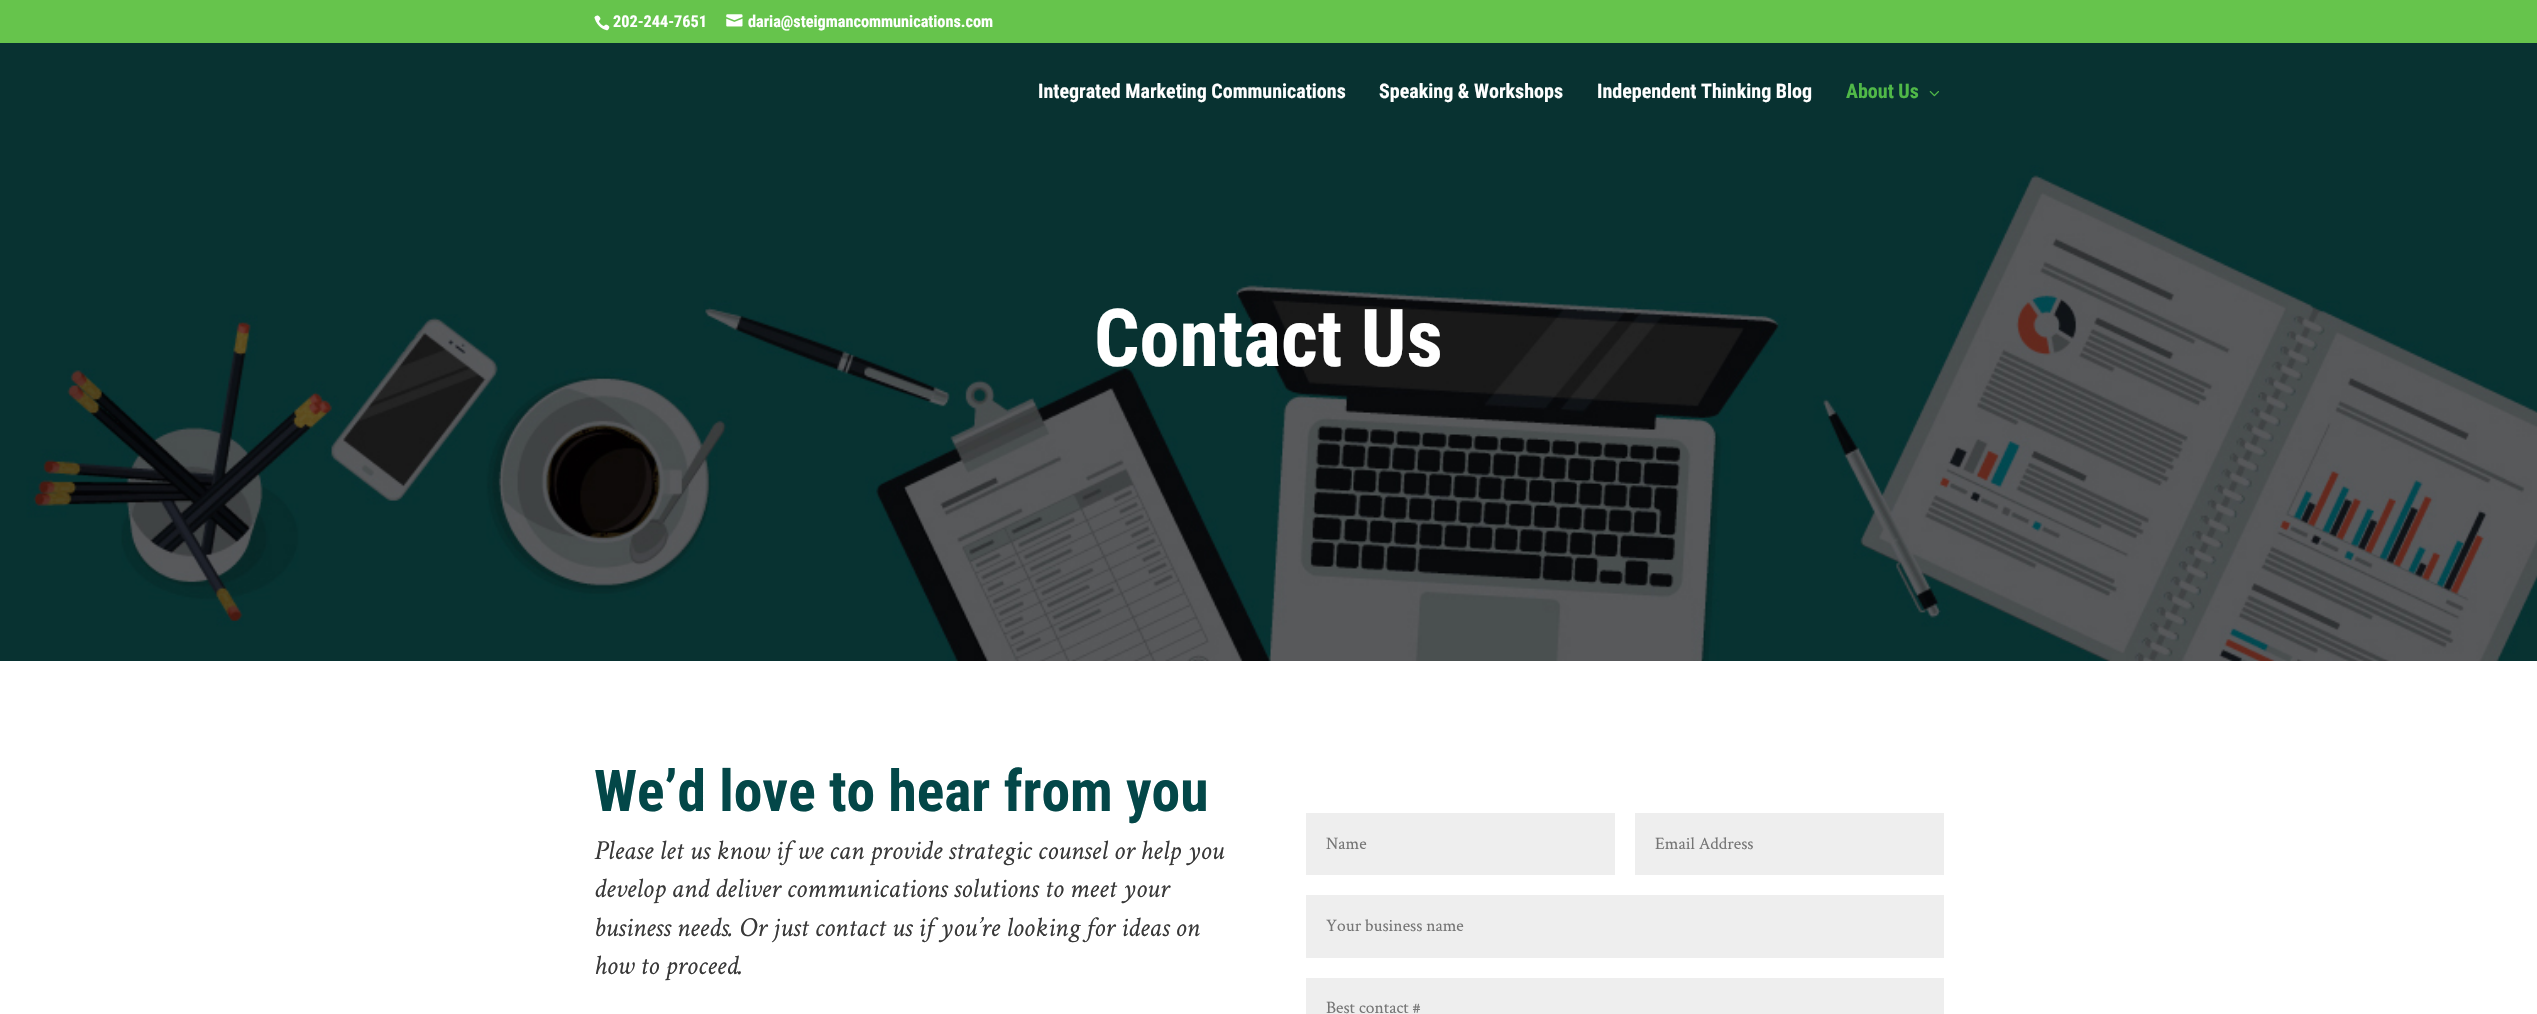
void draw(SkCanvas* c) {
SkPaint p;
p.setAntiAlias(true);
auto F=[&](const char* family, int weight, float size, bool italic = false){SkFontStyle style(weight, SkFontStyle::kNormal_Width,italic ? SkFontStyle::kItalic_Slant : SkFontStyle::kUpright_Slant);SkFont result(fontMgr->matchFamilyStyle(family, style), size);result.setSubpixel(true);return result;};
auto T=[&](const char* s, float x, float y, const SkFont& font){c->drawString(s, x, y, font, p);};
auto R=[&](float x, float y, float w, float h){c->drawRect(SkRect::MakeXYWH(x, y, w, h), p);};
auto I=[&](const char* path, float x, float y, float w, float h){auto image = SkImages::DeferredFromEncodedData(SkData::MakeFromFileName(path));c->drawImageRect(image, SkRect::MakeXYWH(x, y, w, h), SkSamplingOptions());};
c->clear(0xffffffff);
p.setColor(0xff66c44c);
R(0,0,2537,43);
I("1.png",594,15,16,16);
auto f1 = F("Roboto Condensed",700,16.25);
p.setColor(0xffffffff);
T("202-244-7651",613,27,f1);
I("2.png",726,14,17,13);
T("daria@steigmancommunications.com",748,27,f1);
I("4.png",0,43,2537,618);
auto f2 = F("Roboto Condensed",700,20);
T("Integrated Marketing Communications",1038,98,f2);
T("Speaking & Workshops",1379,98,f2);
T("Independent Thinking Blog",1597,98,f2);
p.setColor(0xff50b948);
T("About Us",1846,98,f2);
I("3.png",1929,91,10,6);
auto f3 = F("Roboto Condensed",700,80);
p.setColor(0xffffffff);
T("Contact Us",1094,366,f3);
auto f4 = F("Roboto Condensed",700,57.5);
p.setColor(0xff034748);
T("We’d love to hear from you",594,811,f4);
auto f5 = F("Crimson Text",400,27.5,true);
p.setColor(0xff383838);
T("Please let us know if we can provide strategic counsel or help you",594,859,f5);
T("develop and deliver communications solutions to meet your",594,897,f5);
T("business needs. Or just contact us if you’re looking for ideas on",594,936,f5);
T("how to proceed.",594,974,f5);
p.setColor(0xffeeeeee);
R(1306,813,309,62);
auto f6 = F("Crimson Text",400,17.5);
p.setColor(0xff757575);
T("Name",1326,849,f6);
p.setColor(0xffeeeeee);
R(1635,813,309,62);
p.setColor(0xff757575);
T("Email Address",1655,849,f6);
p.setColor(0xffeeeeee);
R(1306,895,638,63);
p.setColor(0xff757575);
T("Your business name",1326,931,f6);
p.setColor(0xffeeeeee);
R(1306,978,638,36);
p.setColor(0xff757575);
T("Best contact #",1326,1013,f6);
}
